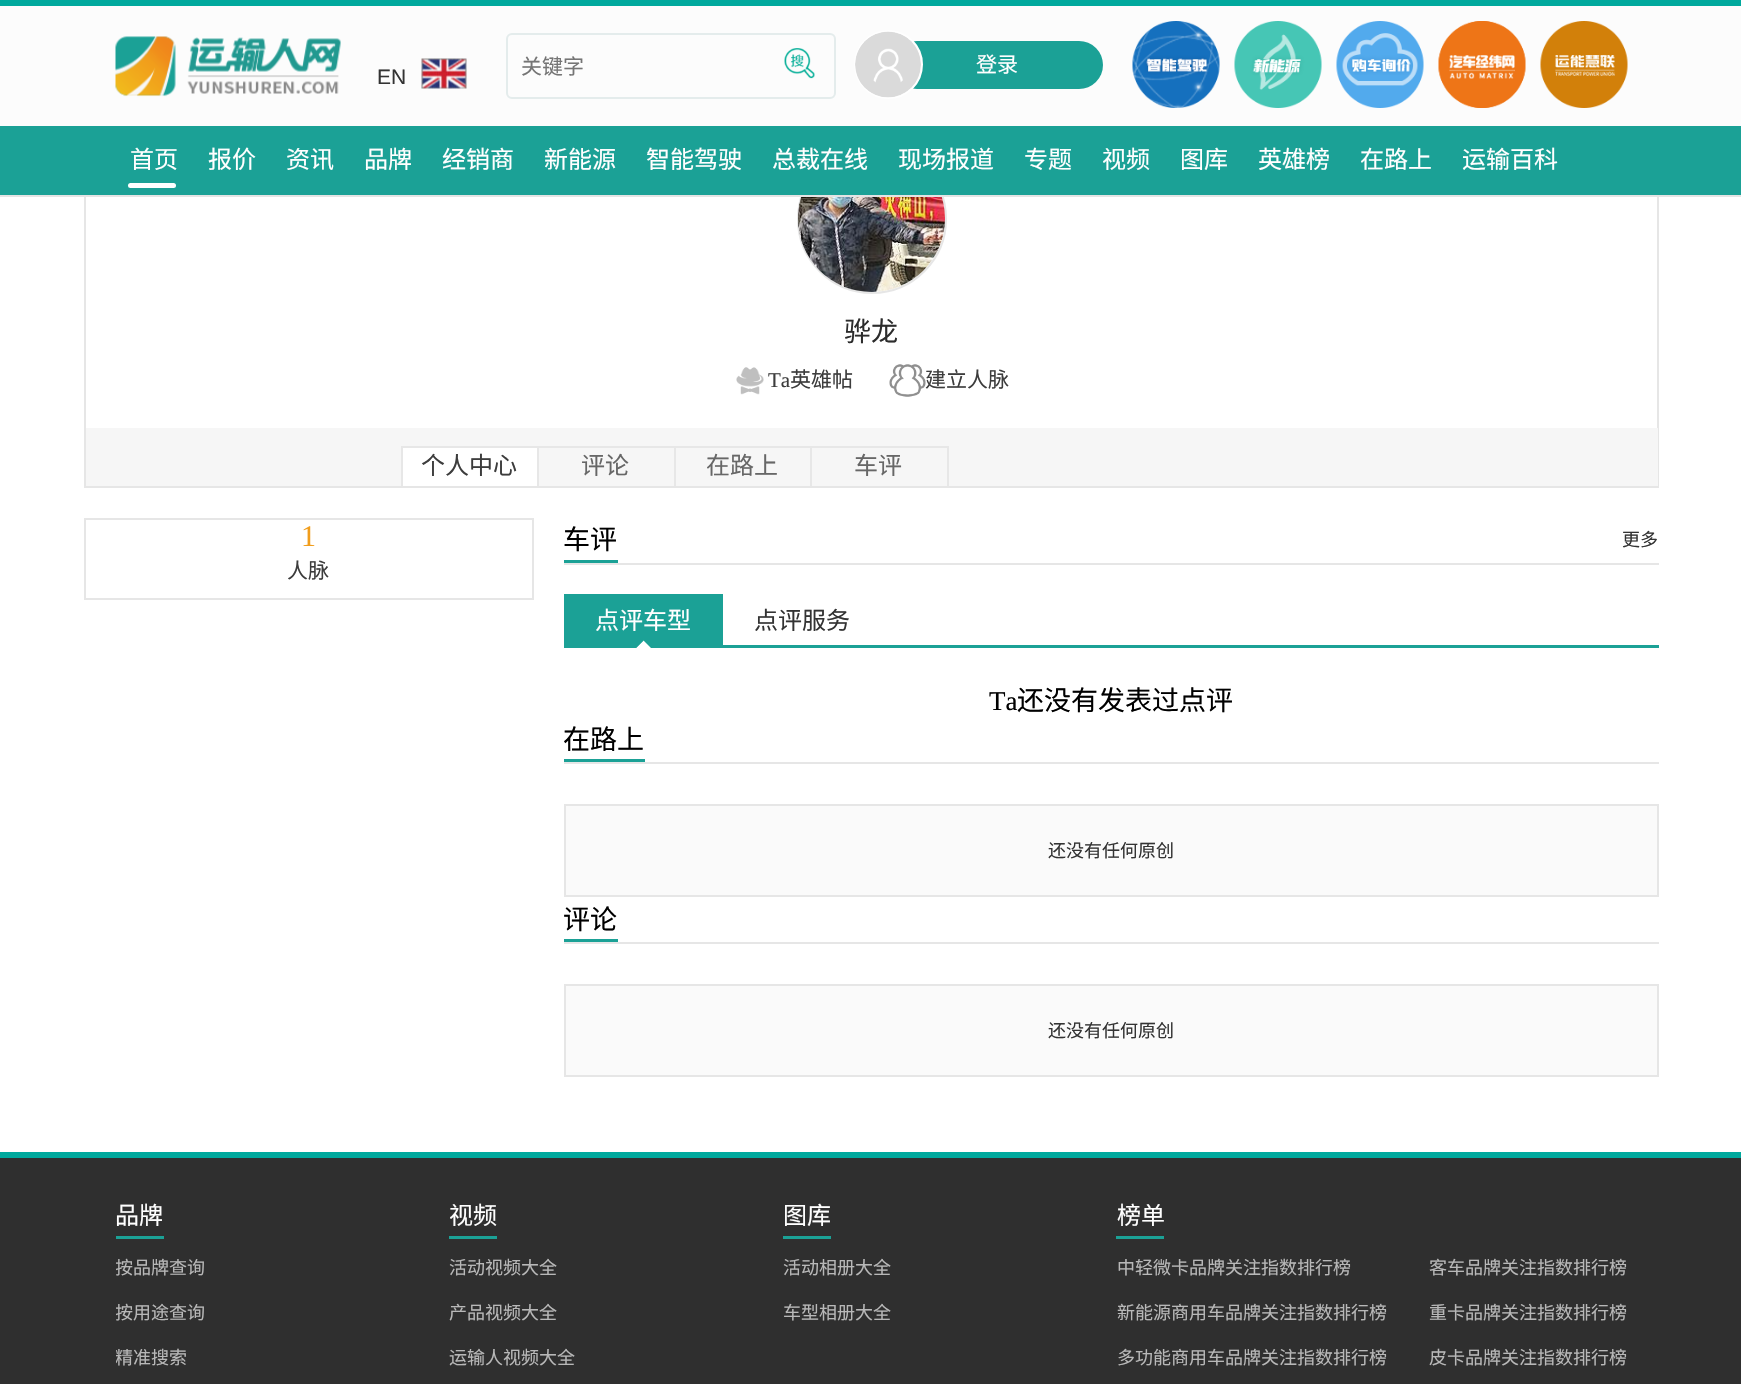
void draw(SkCanvas* c) {
SkPaint p;
p.setAntiAlias(true);
auto F=[&](const char* family, int weight, float size, bool italic = false){SkFontStyle style(weight, SkFontStyle::kNormal_Width,italic ? SkFontStyle::kItalic_Slant : SkFontStyle::kUpright_Slant);SkFont result(fontMgr->matchFamilyStyle(family, style), size);result.setSubpixel(true);return result;};
auto T=[&](const char* s, float x, float y, const SkFont& font){c->drawString(s, x, y, font, p);};
auto R=[&](float x, float y, float w, float h){c->drawRect(SkRect::MakeXYWH(x, y, w, h), p);};
auto Q=[&](float x, float y, float w, float h, float radius){c->drawRoundRect(SkRect::MakeXYWH(x, y, w, h), radius, radius, p);};
auto I=[&](const char* path, float x, float y, float w, float h){auto image = SkImages::DeferredFromEncodedData(SkData::MakeFromFileName(path));c->drawImageRect(image, SkRect::MakeXYWH(x, y, w, h), SkSamplingOptions());};
auto P=[&](const char* data, bool evenOdd = false){SkPath result = *SkParsePath::FromSVGString(data);if (evenOdd) result.setFillType(SkPathFillType::kEvenOdd);return result;};
c->clear(0xffffffff);
p.setStroke(true);
p.setStrokeWidth(2);
p.setColor(0xffe6e6e6);
c->drawRect(SkRect::MakeXYWH(85,121,1573,366),p);
p.setStroke(false);
p.setColor(0xfffcfcfc);
R(0,6,1741,120);
p.setStroke(true);
p.setColor(0xffe6e6e6);
c->drawCircle(872,219,74,p);
p.setStroke(false);
p.setColor(0xffe4e4e4);
R(0,195,1741,2);
p.setColor(0xff00a99d);
R(0,0,1741,6);
I("1.png",115,36,226,61);
auto f1 = F("Liberation Sans",400,21);
p.setColor(0xff333333);
T("EN",377,84,f1);
I("2.png",421,58,46,31);
p.setStroke(true);
p.setColor(0xffe4ecec);
c->drawRoundRect(SkRect::MakeXYWH(507,34,328,64),5,5,p);
auto f2 = F("Noto Sans CJK SC",400,21);
p.setStroke(false);
p.setColor(0xff757575);
T("关键字",521,74,f2);
I("3.png",784,48,31,31);
p.setColor(0xff1ba196);
Q(893,41,210,48,24);
p.setColor(0xffffffff);
c->drawCircle(888.5,64.5,33.5,p);
p.setStroke(true);
c->drawCircle(888.5,64.5,33.5,p);
I("4.png",855,31,66,67);
p.setStroke(false);
T("登录",976,72,f2);
I("5.png",1132,21,88,87);
I("6.png",1234,21,88,87);
I("7.png",1336,21,88,87);
I("8.png",1438,21,88,87);
I("9.png",1540,21,88,87);
p.setColor(0xff1ba196);
R(0,126,1741,69);
auto f3 = F("Noto Sans CJK SC",400,24);
p.setColor(0xffffffff);
T("首页",130,168,f3);
T("报价",208,168,f3);
T("资讯",286,168,f3);
T("品牌",364,168,f3);
T("经销商",442,168,f3);
T("新能源",544,168,f3);
T("智能驾驶",646,168,f3);
T("总裁在线",772,168,f3);
T("现场报道",898,168,f3);
T("专题",1024,168,f3);
T("视频",1102,168,f3);
T("图库",1180,168,f3);
T("英雄榜",1258,168,f3);
T("在路上",1360,168,f3);
T("运输百科",1462,168,f3);
Q(128,183,48,5,2.5);
I("10.png",798,197,147,95);
auto f4 = F("Noto Sans CJK SC",400,27);
p.setColor(0xff2c2c2c);
T("骅龙",844,341,f4);
I("11.png",736,367,28,28);
auto f5 = F("Liberation Serif",400,21);
p.setColor(0xff3d3d3d);
T("Ta",768,387,f5);
T("英雄帖",790,387,f2);
I("12.png",889,364,37,33);
T("建立人脉",925,387,f2);
p.setColor(0xfff6f6f6);
R(86,428,1572,58);
p.setColor(0xffffffff);
R(403,448,134,38);
p.setColor(0xffe7e7e7);
R(401,446,274,2);
R(537,446,2,40);
R(401,446,2,40);
p.setColor(0xff3d3d3d);
T("个人中心",421,474,f3);
p.setColor(0xffe7e7e7);
R(674,446,2,40);
p.setColor(0xff676767);
T("评论",581,474,f3);
p.setColor(0xffe7e7e7);
R(675,446,273,2);
R(810,446,2,40);
p.setColor(0xff676767);
T("在路上",706,474,f3);
p.setColor(0xffe7e7e7);
R(947,446,2,40);
p.setColor(0xff676767);
T("车评",854,474,f3);
p.setStroke(true);
p.setColor(0xffe6e6e6);
c->drawRect(SkRect::MakeXYWH(85,519,448,80),p);
auto f6 = F("Liberation Serif",400,30);
p.setStroke(false);
p.setColor(0xfff19d1b);
T("1",301,546,f6);
p.setColor(0xff3d3d3d);
T("人脉",287,578,f2);
p.setColor(0xffe6e6e6);
R(564,563,1095,2);
p.setColor(0xff1ba196);
R(564,560,54,3);
p.setColor(0xff000000);
T("车评",563,549,f4);
auto f7 = F("Noto Sans CJK SC",400,18);
p.setColor(0xff333333);
T("更多",1622,546,f7);
p.setColor(0xff1ba196);
R(723,645,936,3);
R(564,594,159,54);
p.setColor(0xffffffff);
T("点评车型",595,629,f3);
c->drawPath(P("M651 648h-15l7.5-7.5z"),p);
p.setColor(0xff1ba196);
c->drawPath(P("M636 648v-15l7.5 7.5z"),p);
p.setColor(0xff333333);
T("点评服务",754,629,f3);
auto f8 = F("Liberation Serif",400,27);
p.setColor(0xff000000);
T("Ta",989,710,f8);
T("还没有发表过点评",1017,710,f4);
p.setColor(0xffe6e6e6);
R(564,762,1095,2);
p.setColor(0xff1ba196);
R(564,759,81,3);
p.setColor(0xff000000);
T("在路上",563,749,f4);
p.setColor(0xfffafafa);
c->drawRect(SkRect::MakeXYWH(565,805,1093,91),p);
p.setStroke(true);
p.setColor(0xffe6e6e6);
c->drawRect(SkRect::MakeXYWH(565,805,1093,91),p);
p.setStroke(false);
p.setColor(0xff333333);
T("还没有任何原创",1048,857,f7);
p.setColor(0xffe6e6e6);
R(564,942,1095,2);
p.setColor(0xff1ba196);
R(564,939,54,3);
p.setColor(0xff000000);
T("评论",563,929,f4);
p.setColor(0xfffafafa);
c->drawRect(SkRect::MakeXYWH(565,985,1093,91),p);
p.setStroke(true);
p.setColor(0xffe6e6e6);
c->drawRect(SkRect::MakeXYWH(565,985,1093,91),p);
p.setStroke(false);
p.setColor(0xff333333);
T("还没有任何原创",1048,1037,f7);
p.setColor(0xff00a99d);
R(0,1152,1741,6);
p.setColor(0xff2f2f2f);
R(0,1158,1741,226);
p.setColor(0xffffffff);
T("品牌",115,1224,f3);
p.setColor(0xff1ba196);
R(116,1236,48,3);
c->save();
c->clipRect(SkRect::MakeXYWH(116,1245,135,45));
p.setColor(0xffb8b8b8);
T("按品牌查询",115,1274,f7);
c->restore();
c->save();
c->clipRect(SkRect::MakeXYWH(116,1290,135,45));
T("按用途查询",115,1319,f7);
c->restore();
c->save();
c->clipRect(SkRect::MakeXYWH(116,1335,135,45));
T("精准搜索",115,1364,f7);
c->restore();
p.setColor(0xffffffff);
T("视频",449,1224,f3);
p.setColor(0xff1ba196);
R(449,1236,48,3);
p.setColor(0xffb8b8b8);
T("活动视频大全",449,1274,f7);
T("产品视频大全",449,1319,f7);
T("运输人视频大全",449,1364,f7);
p.setColor(0xffffffff);
T("图库",783,1224,f3);
p.setColor(0xff1ba196);
R(783,1236,48,3);
p.setColor(0xffb8b8b8);
T("活动相册大全",783,1274,f7);
T("车型相册大全",783,1319,f7);
p.setColor(0xffffffff);
T("榜单",1117,1224,f3);
p.setColor(0xff1ba196);
R(1116,1236,48,3);
p.setColor(0xffb8b8b8);
T("中轻微卡品牌关注指数排行榜",1117,1274,f7);
T("客车品牌关注指数排行榜",1429,1274,f7);
T("新能源商用车品牌关注指数排行榜",1117,1319,f7);
T("重卡品牌关注指数排行榜",1429,1319,f7);
T("多功能商用车品牌关注指数排行榜",1117,1364,f7);
T("皮卡品牌关注指数排行榜",1429,1364,f7);
}
